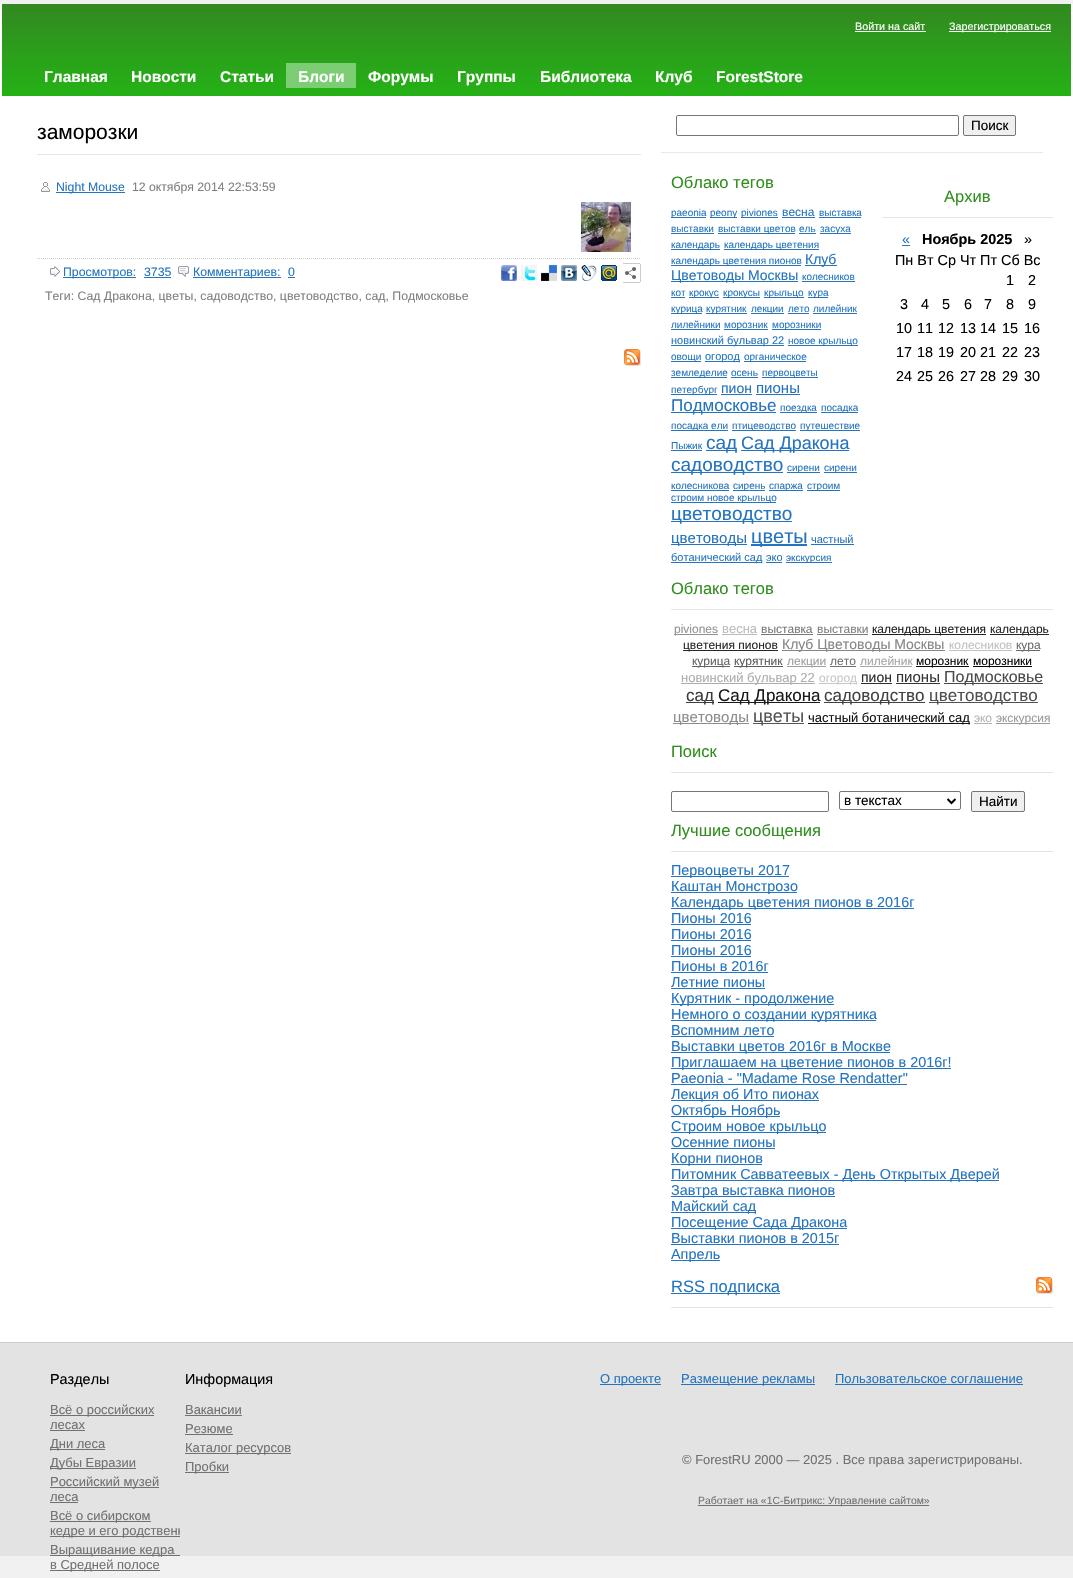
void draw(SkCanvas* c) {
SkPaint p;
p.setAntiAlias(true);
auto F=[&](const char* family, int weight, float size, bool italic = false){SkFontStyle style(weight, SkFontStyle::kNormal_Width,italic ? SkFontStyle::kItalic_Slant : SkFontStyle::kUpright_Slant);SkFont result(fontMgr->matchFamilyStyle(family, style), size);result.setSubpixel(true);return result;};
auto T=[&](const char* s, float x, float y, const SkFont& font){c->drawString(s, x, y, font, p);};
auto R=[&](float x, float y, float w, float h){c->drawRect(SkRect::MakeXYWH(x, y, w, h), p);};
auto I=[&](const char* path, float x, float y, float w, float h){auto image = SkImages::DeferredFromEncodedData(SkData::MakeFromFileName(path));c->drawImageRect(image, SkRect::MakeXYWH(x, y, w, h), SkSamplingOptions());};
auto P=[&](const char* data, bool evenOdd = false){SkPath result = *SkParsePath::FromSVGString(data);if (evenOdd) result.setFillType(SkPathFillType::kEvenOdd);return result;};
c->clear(0xfff1f1f1);
p.setColor(0xffffffff);
R(0,4,1073,1338);
I("1.png",2,4,1069,92);
auto f1 = F("Liberation Sans",400,10.75);
T("Войти на сайт",855,30,f1);
R(855,31,71,1);
R(949,31,102,1);
T("Зарегистрироваться",949,30,f1);
auto f2 = F("Liberation Sans",700,15.5);
T("Главная",44,82,f2);
T("Новости",131,82,f2);
T("Статьи",220,82,f2);
p.setColor(0xff7dcd74);
R(286,63,70,25);
p.setColor(0xffffffff);
T("Блоги",298,82,f2);
T("Форумы",368,82,f2);
T("Группы",457,82,f2);
T("Библиотека",540,82,f2);
T("Клуб",655,82,f2);
T("ForestStore",716,82,f2);
p.setColor(0xffe5e5e5);
R(37,154,604,1);
auto f3 = F("Liberation Sans",400,21);
p.setColor(0xff000000);
T("заморозки",37,139,f3);
I("2.png",41,182,9,10);
p.setColor(0xff2474bf);
R(56,192,69,1);
auto f4 = F("Liberation Sans",400,12.25);
T("Night Mouse",56,191,f4);
p.setColor(0xff7f7f7f);
T("12 октября 2014 22:53:59",132,191,f4);
p.setStroke(true);
p.setStrokeWidth(1);
p.setColor(0xffcccccc);
p.setPathEffect(SkDashPathEffect::Make({{1,1}}, 0));
c->drawPath(P("M37 258.5h604"),p);
p.setPathEffect(nullptr);
I("3.png",581,202,50,50);
I("4.png",50,266,10,11);
p.setStroke(false);
p.setColor(0xff2474bf);
R(63,277,73,1);
auto f5 = F("Liberation Sans",400,12.3);
T("Просмотров:",63,276,f5);
T("3735",144,276,f5);
R(144,277,27,1);
I("5.png",178,266,11,11);
R(193,277,88,1);
T("Комментариев:",193,276,f5);
T("0",288,276,f5);
R(288,277,7,1);
I("6.png",501,265,16,16);
I("7.png",521,265,16,16);
I("8.png",541,265,16,16);
I("9.png",561,265,16,16);
I("10.png",581,265,16,16);
I("11.png",601,265,16,16);
I("12.png",623,263,18,20);
p.setColor(0xff7f7f7f);
T("Теги: Сад Дракона, цветы, садоводство, цветоводство, сад, Подмосковье",45,300,f5);
I("13.png",624,349,17,17);
p.setStroke(true);
p.setColor(0xff767676);
c->drawRoundRect(SkRect::MakeXYWH(676.5,115.5,282,20),1.5,1.5,p);
p.setStroke(false);
p.setColor(0xffefefef);
c->drawRoundRect(SkRect::MakeXYWH(963.5,115.5,52,20),1.5,1.5,p);
p.setStroke(true);
p.setColor(0xff767676);
c->drawRoundRect(SkRect::MakeXYWH(963.5,115.5,52,20),1.5,1.5,p);
auto f6 = F("Liberation Sans",400,13.5);
p.setStroke(false);
p.setColor(0xff000000);
T("Поиск",971,130,f6);
p.setColor(0xffe9e9e9);
R(661,152,382,1);
auto f7 = F("Liberation Sans",400,16.5);
p.setColor(0xff318e1f);
T("Облако тегов",671,188,f7);
p.setColor(0xff2474bf);
R(671,217,35,1);
auto f8 = F("Liberation Sans",400,10);
T("paeonia",671,216,f8);
R(710,217,27,1);
T("peony",710,216,f8);
R(741,217,37,1);
T("piviones",741,216,f8);
auto f9 = F("Liberation Sans",400,12);
T("весна",782,216,f9);
R(782,217,33,1);
T("выставка",819,216,f8);
R(819,217,42,1);
T("выставки",671,232,f8);
R(671,233,43,1);
R(718,233,77,1);
T("выставки цветов",718,232,f8);
T("ель",799,232,f8);
R(799,233,17,1);
R(820,233,31,1);
T("засуха",820,232,f8);
R(671,249,49,1);
T("календарь",671,248,f8);
R(724,249,95,1);
T("календарь цветения",724,248,f8);
R(671,265,130,1);
T("календарь цветения пионов",671,264,f8);
R(805,265,32,1);
auto f10 = F("Liberation Sans",400,14);
T("Клуб",805,264,f10);
R(671,281,127,1);
T("Цветоводы Москвы",671,280,f10);
T("колесников",802,280,f8);
R(802,281,53,1);
T("кот",671,296,f8);
R(671,297,14,1);
R(689,297,30,1);
T("крокус",689,296,f8);
R(723,297,37,1);
T("крокусы",723,296,f8);
R(764,297,40,1);
T("крыльцо",764,296,f8);
R(808,297,20,1);
T("кура",808,296,f8);
R(671,313,31,1);
T("курица",671,312,f8);
R(706,313,41,1);
T("курятник",706,312,f8);
R(751,313,33,1);
T("лекции",751,312,f8);
T("лето",788,312,f8);
R(788,313,21,1);
T("лилейник",813,312,f8);
R(813,313,44,1);
T("лилейники",671,328,f8);
R(671,329,49,1);
R(724,329,44,1);
T("морозник",724,328,f8);
R(772,329,49,1);
T("морозники",772,328,f8);
R(671,345,113,1);
auto f11 = F("Liberation Sans",400,11);
T("новинский бульвар 22",671,344,f11);
R(788,345,70,1);
T("новое крыльцо",788,344,f8);
R(671,361,30,1);
T("овощи",671,360,f8);
R(705,361,35,1);
T("огород",705,360,f11);
R(744,361,62,1);
T("органическое",744,360,f8);
R(671,377,56,1);
T("земледелие",671,376,f8);
T("осень",731,376,f8);
R(731,377,27,1);
R(762,377,56,1);
T("первоцветы",762,376,f8);
R(671,394,46,1);
T("петербург",671,393,f8);
T("пион",721,393,f10);
R(721,394,31,1);
auto f12 = F("Liberation Sans",400,15);
T("пионы",756,393,f12);
R(756,394,44,1);
R(671,412,105,1);
auto f13 = F("Liberation Sans",400,17);
T("Подмосковье",671,411,f13);
R(780,412,37,1);
T("поездка",780,411,f8);
R(821,412,37,1);
T("посадка",821,411,f8);
R(671,430,57,1);
T("посадка ели",671,429,f8);
R(732,430,64,1);
T("птицеводство",732,429,f8);
R(800,430,60,1);
T("путешествие",800,429,f8);
T("Пыжик",671,449,f8);
R(671,450,31,1);
R(706,450,31,1);
auto f14 = F("Liberation Sans",400,19);
T("сад",706,449,f14);
R(741,450,108,1);
auto f15 = F("Liberation Sans",400,18);
T("Сад Дракона",741,449,f15);
R(671,472,112,1);
T("садоводство",671,471,f14);
R(787,472,33,1);
T("сирени",787,471,f8);
R(824,472,33,1);
T("сирени",824,471,f8);
T("колесникова",671,489,f8);
R(671,490,58,1);
R(733,490,32,1);
T("сирень",733,489,f8);
R(769,490,34,1);
T("спаржа",769,489,f8);
R(807,490,33,1);
T("строим",807,489,f8);
R(671,502,105,1);
T("строим новое крыльцо",671,501,f8);
R(671,521,121,1);
T("цветоводство",671,520,f14);
R(671,544,76,1);
T("цветоводы",671,543,f12);
R(751,544,56,2);
auto f16 = F("Liberation Sans",400,20);
T("цветы",751,543,f16);
T("частный",811,543,f11);
R(811,544,43,1);
R(671,562,91,1);
T("ботанический сад",671,561,f11);
T("эко",766,561,f11);
R(766,562,16,1);
R(786,562,46,1);
T("экскурсия",786,561,f8);
p.setColor(0xffe5e5e5);
R(882,217,171,1);
p.setColor(0xff318e1f);
T("Архив",944,202,f7);
auto f17 = F("Liberation Sans",400,14.4);
p.setColor(0xff2474bf);
T("«",902,244,f17);
R(902,245,8,1);
auto f18 = F("Liberation Sans",700,14.4);
p.setColor(0xff000000);
T("Ноябрь 2025",922,244,f18);
T("»",1024,244,f17);
T("Пн Вт Ср Чт Пт Сб Вс",895,265,f17);
T("1",1006,285,f17);
T("2",1028,285,f17);
T("3",900,309,f17);
T("4",921,309,f17);
T("5",942,309,f17);
T("6",964,309,f17);
T("7",984,309,f17);
T("8",1006,309,f17);
T("9",1028,309,f17);
T("10",896,333,f17);
T("11",917,333,f17);
T("12",938,333,f17);
T("13",960,333,f17);
T("14",980,333,f17);
T("15",1002,333,f17);
T("16",1024,333,f17);
T("17",896,357,f17);
T("18",917,357,f17);
T("19",938,357,f17);
T("20",960,357,f17);
T("21",980,357,f17);
T("22",1002,357,f17);
T("23",1024,357,f17);
T("24",896,381,f17);
T("25",917,381,f17);
T("26",938,381,f17);
T("27",960,381,f17);
T("28",980,381,f17);
T("29",1002,381,f17);
T("30",1024,381,f17);
p.setColor(0xffe5e5e5);
R(671,609,382,1);
p.setColor(0xff318e1f);
T("Облако тегов",671,594,f7);
p.setColor(0xff929292);
R(674,634,44,1);
T("piviones",674,633,f9);
auto f19 = F("Liberation Sans",400,13);
p.setColor(0xffbababa);
T("весна",722,633,f19);
R(722,634,35,1);
p.setColor(0xff787878);
T("выставка",761,633,f9);
R(761,634,52,1);
p.setColor(0xff7f7f7f);
T("выставки",817,633,f9);
p.setColor(0xff7e7e7e);
R(817,634,51,1);
p.setColor(0xff212121);
R(872,634,114,1);
T("календарь цветения",872,633,f9);
p.setColor(0xff282828);
R(990,634,59,1);
T("календарь",990,633,f9);
R(683,650,95,1);
T("цветения пионов",683,649,f9);
p.setColor(0xff858585);
R(782,650,163,1);
T("Клуб Цветоводы Москвы",782,649,f10);
p.setColor(0xffc1c1c1);
T("колесников",949,649,f9);
R(949,650,63,1);
p.setColor(0xff6a6a6a);
R(1016,650,24,1);
T("кура",1016,649,f9);
p.setColor(0xff646464);
R(692,666,38,1);
T("курица",692,665,f9);
p.setColor(0xff5d5d5d);
R(734,666,49,1);
T("курятник",734,665,f9);
p.setColor(0xffa0a0a0);
R(787,666,39,1);
T("лекции",787,665,f9);
p.setColor(0xff717171);
T("лето",830,665,f9);
R(830,666,26,1);
p.setColor(0xffa6a6a6);
T("лилейник",860,665,f9);
R(860,666,52,1);
p.setColor(0xff0d0d0d);
R(916,666,53,1);
T("морозник",916,665,f9);
p.setColor(0xff060606);
R(973,666,59,1);
T("морозники",973,665,f9);
p.setColor(0xffadadad);
R(681,683,134,1);
T("новинский бульвар 22",681,682,f19);
p.setColor(0xffc8c8c8);
R(819,683,38,1);
T("огород",819,682,f9);
p.setColor(0xff2e2e2e);
T("пион",861,682,f10);
R(861,683,31,1);
p.setColor(0xff353535);
T("пионы",896,682,f12);
R(896,683,44,1);
p.setColor(0xff494949);
R(944,683,99,1);
auto f20 = F("Liberation Sans",400,16);
T("Подмосковье",944,682,f20);
p.setColor(0xff3c3c3c);
R(686,702,28,1);
T("сад",686,701,f13);
p.setColor(0xff1a1a1a);
R(718,702,102,1);
T("Сад Дракона",718,701,f13);
p.setColor(0xff424242);
R(824,702,101,1);
T("садоводство",824,701,f13);
p.setColor(0xff505050);
R(929,702,109,1);
T("цветоводство",929,701,f13);
p.setColor(0xff8c8c8c);
R(673,723,76,1);
T("цветоводы",673,722,f12);
p.setColor(0xff565656);
R(753,723,51,1);
T("цветы",753,722,f15);
p.setColor(0xff141414);
R(808,723,162,1);
T("частный ботанический сад",808,722,f19);
p.setColor(0xffb4b4b4);
T("эко",974,722,f9);
R(974,723,18,1);
p.setColor(0xff999999);
R(996,723,54,1);
T("экскурсия",996,722,f9);
p.setColor(0xffe5e5e5);
R(671,772,382,1);
p.setColor(0xff318e1f);
T("Поиск",671,757,f7);
p.setStroke(true);
p.setColor(0xff767676);
c->drawRoundRect(SkRect::MakeXYWH(671.5,791.5,157,20),1.5,1.5,p);
c->drawRoundRect(SkRect::MakeXYWH(839.5,791.5,121,18),1.5,1.5,p);
p.setStrokeWidth(2);
p.setColor(0xff000000);
c->drawPath(P("M947.5 799l4 4l4-4"),p);
p.setStroke(false);
T("в текстах",844,805,f6);
p.setColor(0xffefefef);
c->drawRoundRect(SkRect::MakeXYWH(971.5,791.5,53,20),1.5,1.5,p);
p.setStroke(true);
p.setStrokeWidth(1);
p.setColor(0xff767676);
c->drawRoundRect(SkRect::MakeXYWH(971.5,791.5,53,20),1.5,1.5,p);
p.setStroke(false);
p.setColor(0xff000000);
T("Найти",979,806,f6);
p.setColor(0xffe5e5e5);
R(671,851,382,1);
p.setColor(0xff318e1f);
T("Лучшие сообщения",671,836,f7);
p.setColor(0xff2474bf);
R(671,876,118,1);
T("Первоцветы 2017",671,875,f17);
R(671,892,126,1);
T("Каштан Монстрозо",671,891,f17);
R(671,908,243,1);
T("Календарь цветения пионов в 2016г",671,907,f17);
T("Пионы 2016",671,923,f17);
R(671,924,80,1);
T("Пионы 2016",671,939,f17);
R(671,940,80,1);
T("Пионы 2016",671,955,f17);
R(671,956,80,1);
T("Пионы в 2016г",671,971,f17);
R(671,972,97,1);
T("Летние пионы",671,987,f17);
R(671,988,94,1);
R(671,1004,163,1);
T("Курятник - продолжение",671,1003,f17);
R(671,1020,205,1);
T("Немного о создании курятника",671,1019,f17);
T("Вспомним лето",671,1035,f17);
R(671,1036,103,1);
R(671,1052,219,1);
T("Выставки цветов 2016г в Москве",671,1051,f17);
R(671,1068,280,1);
T("Приглашаем на цветение пионов в 2016г!",671,1067,f17);
T("Paeonia - \"Madame Rose Rendatter\"",671,1083,f17);
R(671,1084,236,1);
R(671,1100,148,1);
T("Лекция об Ито пионах",671,1099,f17);
R(671,1116,109,1);
T("Октябрь Ноябрь",671,1115,f17);
R(671,1132,155,1);
T("Строим новое крыльцо",671,1131,f17);
T("Осенние пионы",671,1147,f17);
R(671,1148,104,1);
R(671,1164,91,1);
T("Корни пионов",671,1163,f17);
R(671,1180,328,1);
T("Питомник Савватеевых - День Открытых Дверей",671,1179,f17);
R(671,1196,164,1);
T("Завтра выставка пионов",671,1195,f17);
R(671,1212,85,1);
T("Майский сад",671,1211,f17);
R(671,1228,176,1);
T("Посещение Сада Дракона",671,1227,f17);
T("Выставки пионов в 2015г",671,1243,f17);
R(671,1244,168,1);
R(671,1260,49,1);
T("Апрель",671,1259,f17);
p.setColor(0xffe5e5e5);
R(671,1307,382,1);
p.setColor(0xff2474bf);
R(671,1293,109,1);
T("RSS подписка",671,1292,f7);
I("13.png",1036,1277,17,17);
p.setColor(0xffe3e3e3);
R(0,1343,1073,213);
p.setColor(0xffcccccc);
R(0,1342,1073,1);
p.setColor(0xff000000);
T("Разделы",50,1384,f17);
p.setColor(0xff717171);
R(50,1415,104,1);
auto f21 = F("Liberation Sans",400,12.95);
T("Всё о российских",50,1414,f21);
T("лесах",50,1429,f21);
R(50,1430,35,1);
R(50,1449,55,1);
T("Дни леса",50,1448,f21);
R(50,1468,86,1);
T("Дубы Евразии",50,1467,f21);
R(50,1487,109,1);
T("Российский музей",50,1486,f21);
T("леса",50,1501,f21);
R(50,1502,28,1);
R(50,1521,101,1);
T("Всё о сибирском",50,1520,f21);
R(50,1536,130,1);
c->save();
c->clipRect(SkRect::MakeXYWH(50,1508,130,30));
T("кедре и его родственн",50,1535,f21);
c->restore();
R(50,1555,130,1);
T("Выращивание кедра",50,1554,f21);
R(50,1570,110,1);
T("в Средней полосе",50,1569,f21);
p.setColor(0xff000000);
T("Информация",185,1384,f17);
p.setColor(0xff717171);
T("Вакансии",185,1414,f21);
R(185,1415,57,1);
T("Резюме",185,1433,f21);
R(185,1434,48,1);
R(185,1453,106,1);
T("Каталог ресурсов",185,1452,f21);
R(185,1472,44,1);
T("Пробки",185,1471,f21);
p.setColor(0xff2474bf);
R(600,1384,61,1);
T("О проекте",600,1383,f21);
R(681,1384,134,1);
T("Размещение рекламы",681,1383,f21);
T("Пользовательское соглашение",835,1383,f21);
R(835,1384,188,1);
p.setColor(0xff717171);
T("© ForestRU 2000 — 2025 . Все права зарегистрированы.",682,1464,f21);
R(698,1505,231,1);
auto f22 = F("Liberation Sans",400,10.4);
T("Работает на «1С-Битрикс: Управление сайтом»",698,1504,f22);
}
